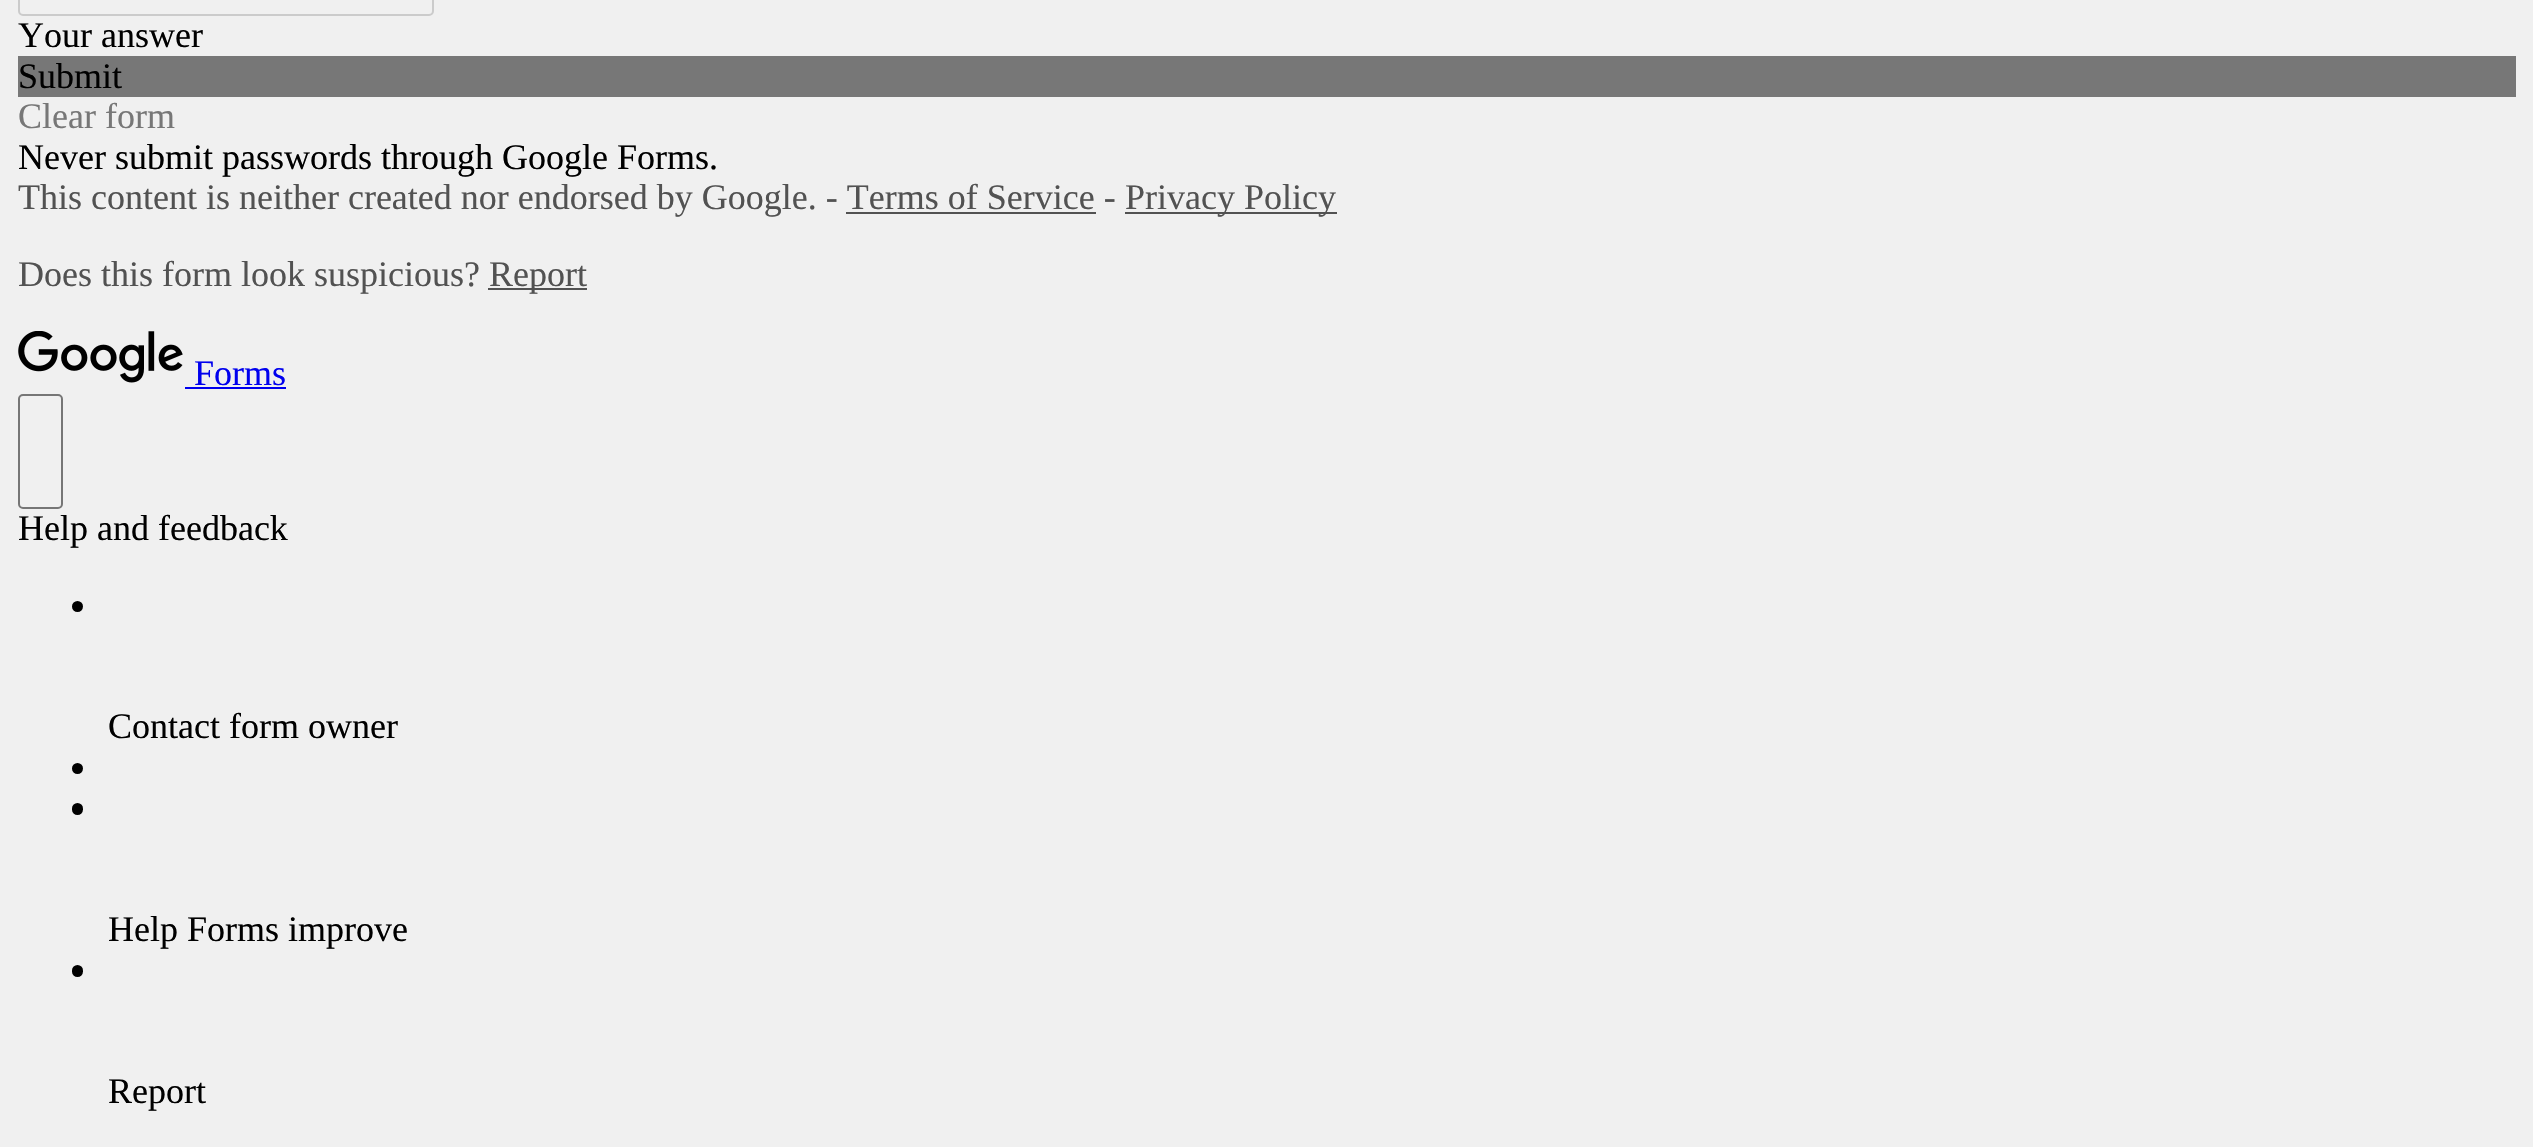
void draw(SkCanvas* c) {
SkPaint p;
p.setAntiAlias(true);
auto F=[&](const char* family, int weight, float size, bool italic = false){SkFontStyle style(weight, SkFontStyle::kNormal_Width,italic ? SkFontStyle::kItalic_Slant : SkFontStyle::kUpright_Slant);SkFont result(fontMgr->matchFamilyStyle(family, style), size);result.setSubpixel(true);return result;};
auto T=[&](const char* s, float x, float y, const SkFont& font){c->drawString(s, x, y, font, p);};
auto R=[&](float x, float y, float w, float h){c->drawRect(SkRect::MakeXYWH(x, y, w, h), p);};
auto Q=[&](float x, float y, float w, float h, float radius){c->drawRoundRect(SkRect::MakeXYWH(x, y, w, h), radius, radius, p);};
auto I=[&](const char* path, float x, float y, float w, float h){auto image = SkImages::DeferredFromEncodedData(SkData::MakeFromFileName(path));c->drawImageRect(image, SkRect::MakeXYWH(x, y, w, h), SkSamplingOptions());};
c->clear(0xfff0f0f0);
p.setStroke(true);
p.setStrokeWidth(2);
p.setColor(0xffcbcbcb);
c->drawRoundRect(SkRect::MakeXYWH(19,-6,414,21),4,4,p);
auto f1 = F("Liberation Serif",400,36);
p.setStroke(false);
p.setColor(0xff000000);
T("Your answer",18,47,f1);
p.setColor(0xff777777);
R(18,56,2498,41);
p.setColor(0xff000000);
T("Submit",18,88,f1);
p.setColor(0xff777777);
T("Clear form",18,128,f1);
p.setColor(0xff000000);
T("Never submit passwords through Google Forms.",18,169,f1);
p.setColor(0xff525252);
T("This content is neither created nor endorsed by Google. - Terms of Service -",18,209,f1);
R(1125,212,212,2);
T("Privacy Policy",1125,209,f1);
R(846,212,250,2);
T("Does this form look suspicious?",18,286,f1);
R(488,288,99,2);
T("Report",489,286,f1);
I("1.png",18,331,165,52);
p.setColor(0xff0000ee);
T("Forms",194,385,f1);
R(185,387,101,2);
p.setStroke(true);
p.setColor(0xff767676);
c->drawRoundRect(SkRect::MakeXYWH(19,395,43,113),4,4,p);
p.setStroke(false);
p.setColor(0xff000000);
T("Help and feedback",18,540,f1);
c->drawCircle(77.5,606.5,5.5,p);
T("Contact form owner",108,738,f1);
c->drawCircle(77.5,768.5,5.5,p);
Q(72,803,11,12,5.5);
T("Help Forms improve",108,941,f1);
Q(72,965,11,12,5.5);
T("Report",108,1103,f1);
}
